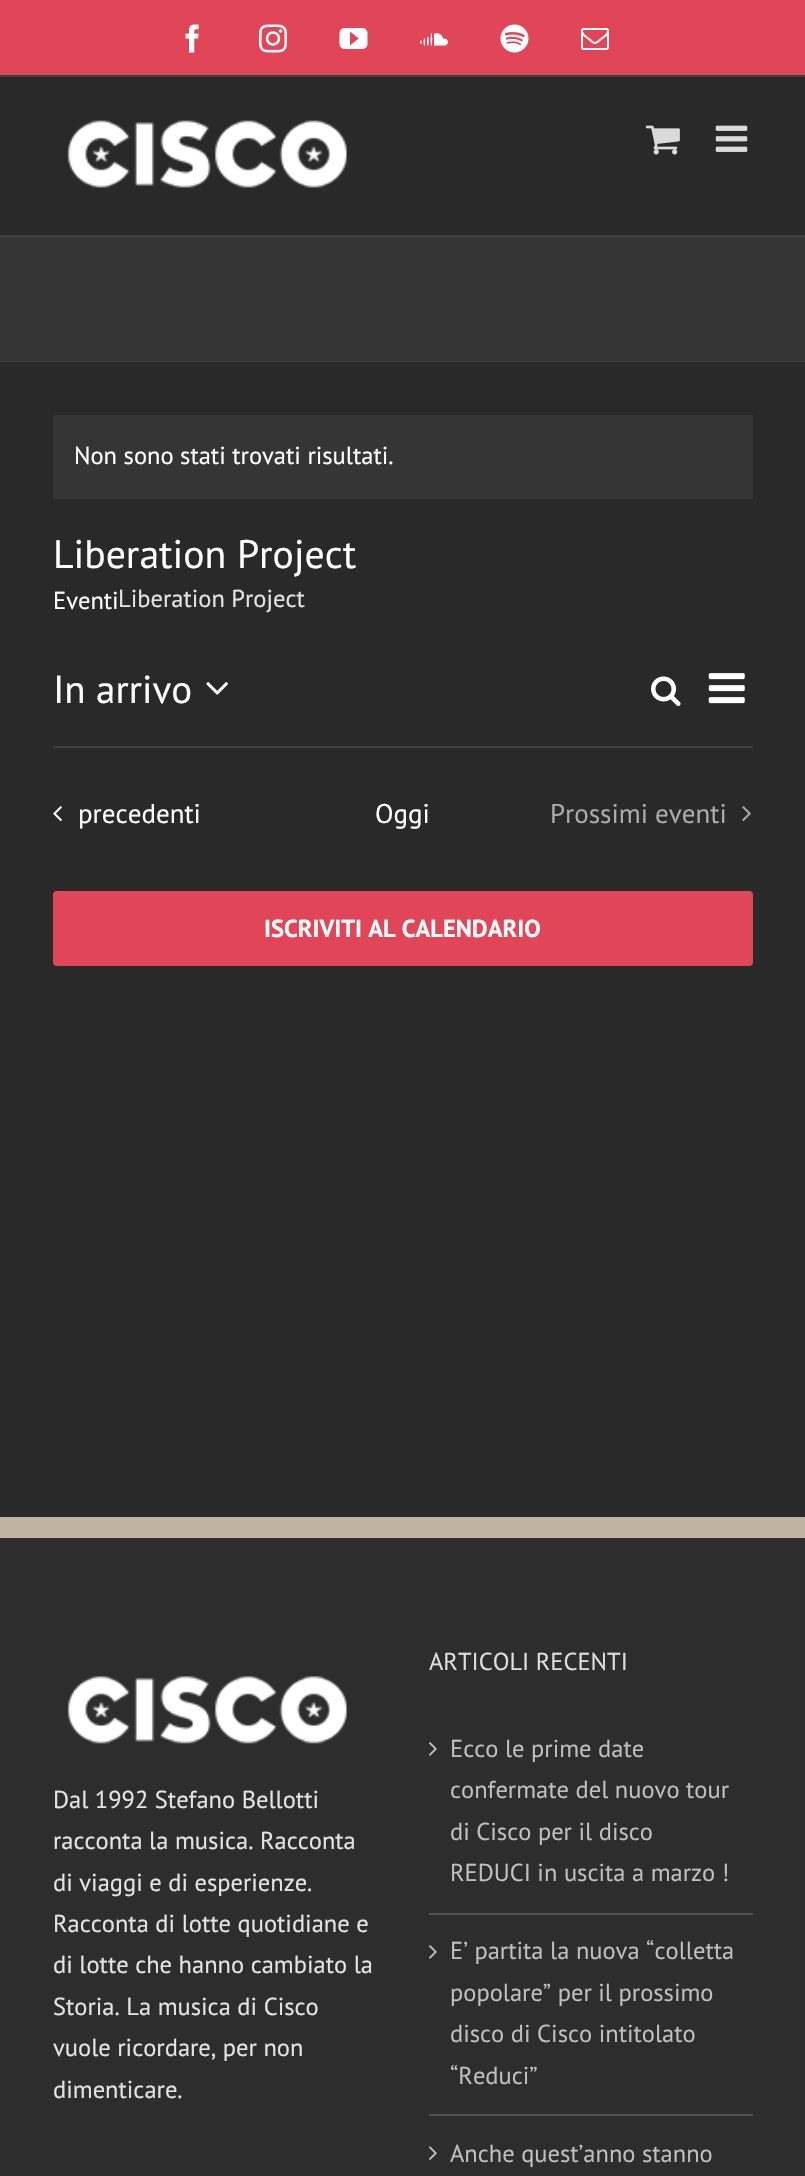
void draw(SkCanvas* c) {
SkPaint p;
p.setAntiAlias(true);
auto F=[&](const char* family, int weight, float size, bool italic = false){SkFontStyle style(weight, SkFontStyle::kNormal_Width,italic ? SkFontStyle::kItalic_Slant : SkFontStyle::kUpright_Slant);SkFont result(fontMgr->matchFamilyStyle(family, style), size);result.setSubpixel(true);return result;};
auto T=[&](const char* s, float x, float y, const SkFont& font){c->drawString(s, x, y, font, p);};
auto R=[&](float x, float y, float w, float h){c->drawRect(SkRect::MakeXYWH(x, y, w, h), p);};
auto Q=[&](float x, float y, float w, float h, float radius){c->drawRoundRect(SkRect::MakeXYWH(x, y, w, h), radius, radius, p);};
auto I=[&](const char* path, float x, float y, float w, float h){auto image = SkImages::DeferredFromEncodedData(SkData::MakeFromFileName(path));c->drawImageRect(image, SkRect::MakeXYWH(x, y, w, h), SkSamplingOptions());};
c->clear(0xff353535);
p.setColor(0xffe14658);
R(0,0,805,75);
p.setColor(0xff3e3e3e);
R(0,75,805,2);
I("1.png",185,24,14,29);
I("2.png",259,24,28,29);
I("3.png",339,28,29,21);
I("4.png",420,33,28,13);
I("5.png",500,24,29,29);
I("6.png",581,28,28,22);
p.setColor(0xff29292a);
R(0,77,805,158);
I("7.png",67,120,280,68);
I("8.png",645,125,35,30);
I("9.png",715,125,33,27);
p.setColor(0xff3e3e3e);
R(0,235,805,3);
R(0,361,805,1);
p.setColor(0xff29292a);
R(0,362,805,1155);
p.setColor(0xff353535);
R(53,415,700,84);
auto f1 = F("PT Sans",400,24.5);
p.setColor(0xffffffff);
T("Non sono stati trovati risultati.",74,464,f1);
auto f2 = F("PT Sans",400,39.75);
T("Liberation Project",53,568,f2);
T("Eventi",53,609,f1);
p.setColor(0xffe3e3e3);
T("Liberation Project",118,607,f1);
auto f3 = F("PT Sans",400,39);
p.setColor(0xffffffff);
T("In arrivo",53,703,f3);
I("10.png",206,682,22,13);
I("11.png",651,676,30,30);
I("12.png",708,673,37,31);
p.setColor(0xff3e3e3e);
R(53,746,700,2);
I("13.png",53,806,9,16);
auto f4 = F("PT Sans",400,27);
p.setColor(0xffffffff);
T("precedenti",78,823,f4);
T("Oggi",375,823,f4);
p.setColor(0xffababac);
T("Prossimi eventi",550,823,f4);
I("14.png",742,806,9,15);
p.setColor(0xffe14658);
Q(53,891,700,75,4);
auto f5 = F("PT Sans",700,24.5);
p.setColor(0xffffffff);
T("ISCRIVITI AL CALENDARIO",264,937,f5);
p.setColor(0xff2d2d2d);
R(0,1538,805,638);
p.setColor(0xffc0b3a0);
R(0,1517,805,21);
I("15.png",67,1676,280,68);
p.setColor(0xffe3e3e3);
T("Dal 1992 Stefano Bellotti",53,1808,f1);
T("racconta la musica. Racconta",53,1849,f1);
T("di viaggi e di esperienze.",53,1891,f1);
T("Racconta di lotte quotidiane e",53,1932,f1);
T("di lotte che hanno cambiato la",53,1973,f1);
T("Storia. La musica di Cisco",53,2015,f1);
T("vuole ricordare, per non",53,2056,f1);
T("dimenticare.",53,2098,f1);
p.setColor(0xffdddddd);
T("ARTICOLI RECENTI",429,1670,f1);
p.setColor(0xff505152);
R(429,1913,324,2);
I("16.png",429,1742,8,14);
p.setColor(0xffbfbfbf);
T("Ecco le prime date",450,1757,f1);
T("confermate del nuovo tour",450,1798,f1);
T("di Cisco per il disco",450,1840,f1);
T("REDUCI in uscita a marzo !",450,1881,f1);
p.setColor(0xff505152);
R(429,2114,324,2);
I("16.png",429,1945,8,14);
p.setColor(0xffbfbfbf);
T("E’ partita la nuova “colletta",450,1959,f1);
T("popolare” per il prossimo",450,2001,f1);
T("disco di Cisco intitolato",450,2042,f1);
T("“Reduci”",450,2084,f1);
I("17.png",429,2146,8,14);
T("Anche quest’anno stanno",450,2162,f1);
}
